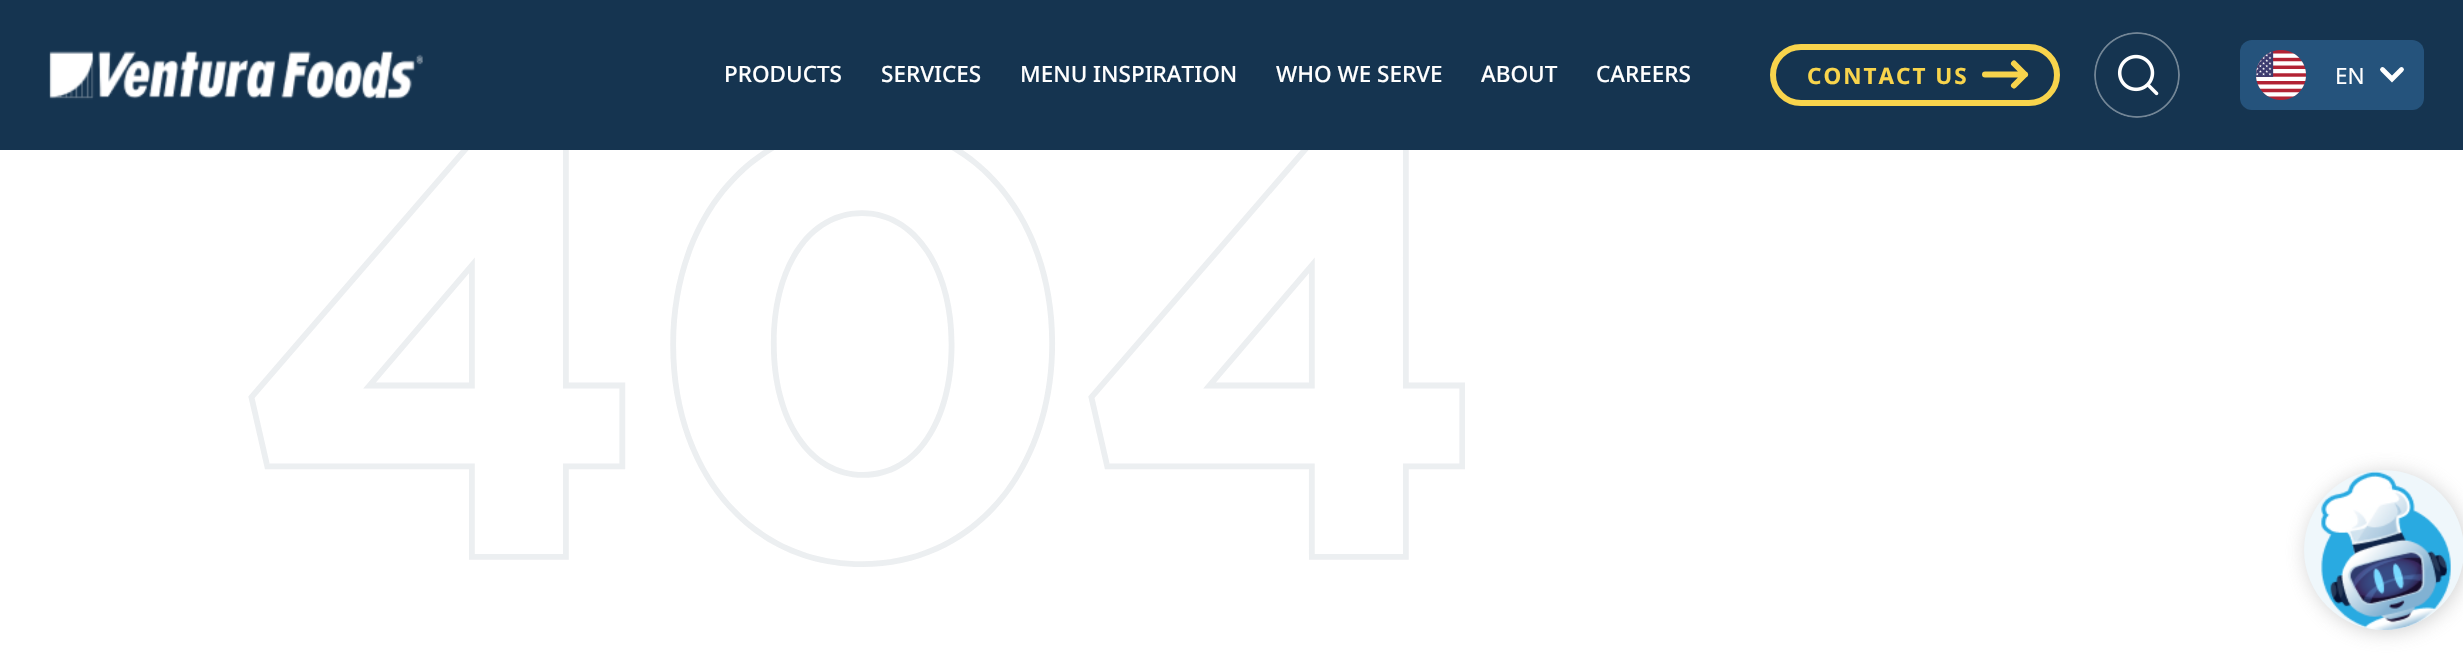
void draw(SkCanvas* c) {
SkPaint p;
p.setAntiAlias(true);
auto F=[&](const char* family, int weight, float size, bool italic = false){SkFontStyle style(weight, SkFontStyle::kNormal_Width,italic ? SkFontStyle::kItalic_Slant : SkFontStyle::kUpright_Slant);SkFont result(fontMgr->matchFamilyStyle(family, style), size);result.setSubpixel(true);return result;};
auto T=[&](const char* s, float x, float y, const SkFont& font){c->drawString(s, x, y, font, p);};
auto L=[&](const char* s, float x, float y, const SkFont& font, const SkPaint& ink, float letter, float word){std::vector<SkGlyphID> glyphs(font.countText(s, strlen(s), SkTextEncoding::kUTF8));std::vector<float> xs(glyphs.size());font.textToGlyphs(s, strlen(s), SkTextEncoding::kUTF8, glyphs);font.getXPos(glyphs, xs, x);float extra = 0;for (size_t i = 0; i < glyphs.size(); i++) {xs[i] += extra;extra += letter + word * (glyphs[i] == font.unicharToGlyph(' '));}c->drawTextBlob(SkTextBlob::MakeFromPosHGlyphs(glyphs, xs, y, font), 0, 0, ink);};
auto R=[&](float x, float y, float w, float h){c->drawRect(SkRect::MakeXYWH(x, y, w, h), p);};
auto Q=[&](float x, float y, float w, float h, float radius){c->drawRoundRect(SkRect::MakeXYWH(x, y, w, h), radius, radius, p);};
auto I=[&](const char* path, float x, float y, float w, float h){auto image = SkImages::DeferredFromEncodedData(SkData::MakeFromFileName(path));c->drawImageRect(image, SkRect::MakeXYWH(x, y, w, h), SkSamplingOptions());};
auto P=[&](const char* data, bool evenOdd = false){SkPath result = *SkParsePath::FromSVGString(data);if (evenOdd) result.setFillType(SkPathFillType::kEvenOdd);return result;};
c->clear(0xffffffff);
p.setColor(0xff153450);
R(0,0,2463,150);
I("1.png",49,50,374,50);
auto f1 = F("Noto Sans",500,22.5);
p.setColor(0xffffffff);
T("PRODUCTS",724,82,f1);
T("SERVICES",881,82,f1);
T("MENU INSPIRATION",1020,82,f1);
T("WHO WE SERVE",1276,82,f1);
T("ABOUT",1481,82,f1);
T("CAREERS",1596,82,f1);
p.setStroke(true);
p.setStrokeWidth(6);
p.setStrokeCap(SkPaint::kRound_Cap);
p.setColor(0xfff8d44c);
c->drawPath(P("M1985 74.5h40m0 0l-11-11m11 11l-11 11"),p);
p.setStrokeCap(SkPaint::kButt_Cap);
c->drawRoundRect(SkRect::MakeXYWH(1773,47,284,56),28,28,p);
auto f2 = F("Noto Sans",700,22.5);
p.setStroke(false);
L("CONTACT US",1807,84,f2,p,2,0);
I("2.png",2094,32,86,86);
p.setColor(0xff25537c);
Q(2240,40,184,70,12);
I("3.png",2256,50,50,50);
auto f3 = F("Noto Sans",400,22.5);
p.setColor(0xffffffff);
T("EN",2335,84,f3);
p.setStroke(true);
p.setStrokeWidth(4.8);
p.setStrokeCap(SkPaint::kRound_Cap);
c->drawPath(P("M2401.5 69.5l-9.5 9.5l-9.5-9.5"),p);
I("4.png",248,150,1217,417);
p.setStroke(false);
p.setColor(0x739c9c9c);
p.setMaskFilter(SkMaskFilter::MakeBlur(kNormal_SkBlurStyle, 10));
c->drawRoundRect(SkRect::MakeXYWH(2306,472,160,160),80,80,p);
p.setMaskFilter(nullptr);
p.setColor(0xffeff7fb);
c->drawCircle(2384,550,80,p);
I("5.png",2321,471,130,159);
}
